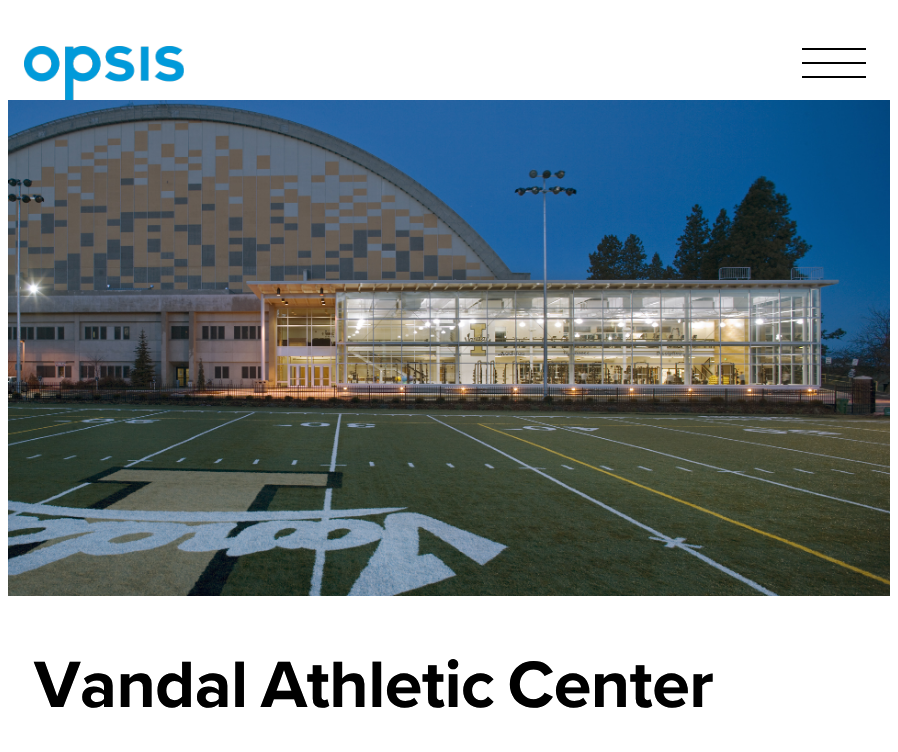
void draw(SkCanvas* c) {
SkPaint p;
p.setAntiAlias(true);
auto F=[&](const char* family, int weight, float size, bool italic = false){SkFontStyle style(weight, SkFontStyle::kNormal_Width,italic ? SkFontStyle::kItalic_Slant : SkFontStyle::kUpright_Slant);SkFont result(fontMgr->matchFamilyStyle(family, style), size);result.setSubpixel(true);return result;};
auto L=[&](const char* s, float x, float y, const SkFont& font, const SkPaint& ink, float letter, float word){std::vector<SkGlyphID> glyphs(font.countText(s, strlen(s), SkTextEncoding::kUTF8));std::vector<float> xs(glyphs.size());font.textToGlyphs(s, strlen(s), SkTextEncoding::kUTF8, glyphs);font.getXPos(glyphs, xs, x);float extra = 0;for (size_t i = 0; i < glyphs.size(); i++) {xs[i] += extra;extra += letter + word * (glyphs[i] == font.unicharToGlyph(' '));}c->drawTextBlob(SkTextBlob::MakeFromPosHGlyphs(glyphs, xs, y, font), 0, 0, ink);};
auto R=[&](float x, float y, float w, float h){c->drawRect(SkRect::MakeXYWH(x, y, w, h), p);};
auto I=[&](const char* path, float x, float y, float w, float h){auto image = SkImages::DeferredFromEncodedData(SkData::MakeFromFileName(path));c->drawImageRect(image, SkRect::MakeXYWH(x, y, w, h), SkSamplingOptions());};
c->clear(0xffffffff);
I("1.png",24,46,160,54);
p.setColor(0xff000000);
R(802,48,64,2);
R(802,62,64,2);
R(802,76,64,2);
I("2.png",8,100,882,496);
auto f1 = F("Proxima Nova",700,68);
L("Vandal Athletic Center",34,707,f1,p,-.5,-4);
}
